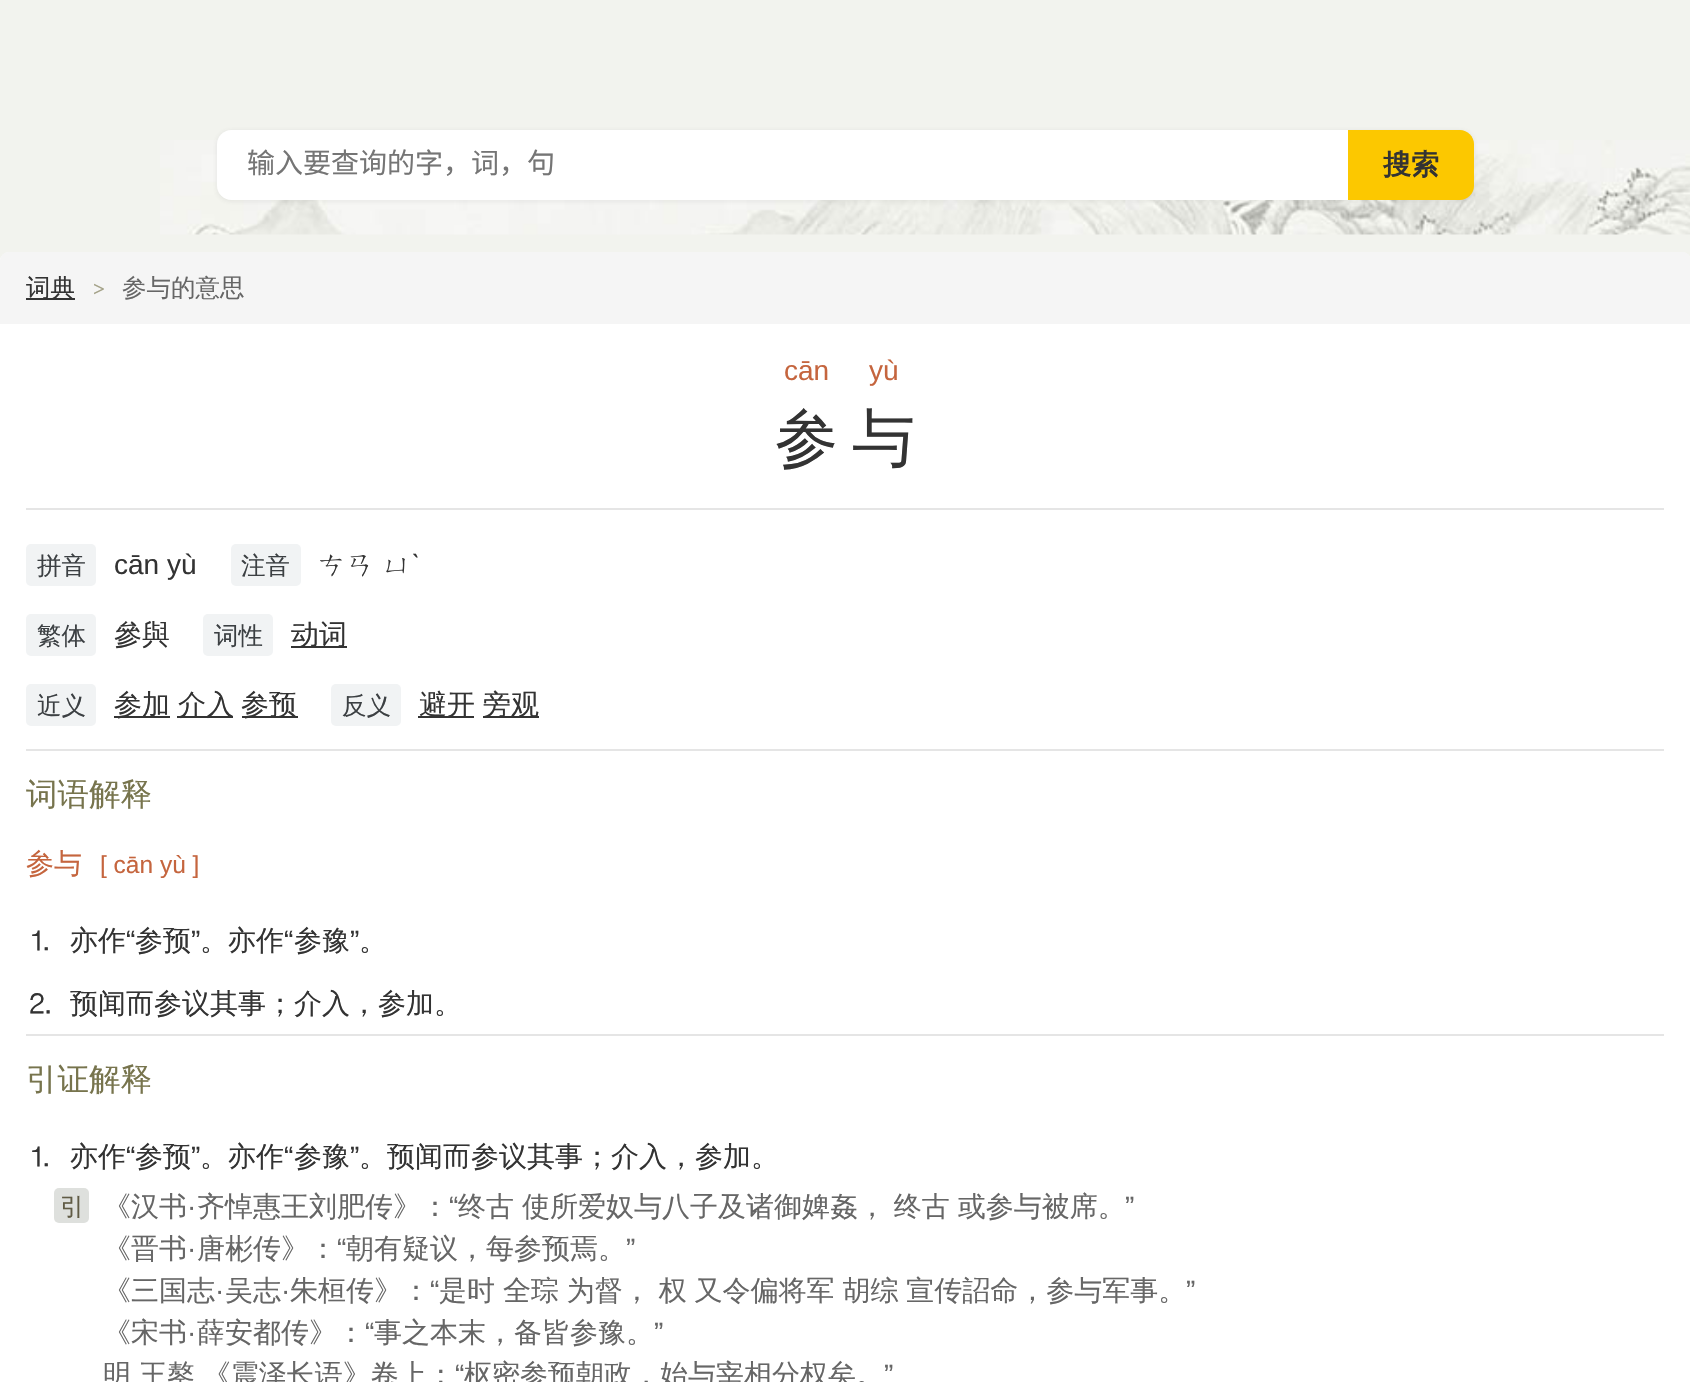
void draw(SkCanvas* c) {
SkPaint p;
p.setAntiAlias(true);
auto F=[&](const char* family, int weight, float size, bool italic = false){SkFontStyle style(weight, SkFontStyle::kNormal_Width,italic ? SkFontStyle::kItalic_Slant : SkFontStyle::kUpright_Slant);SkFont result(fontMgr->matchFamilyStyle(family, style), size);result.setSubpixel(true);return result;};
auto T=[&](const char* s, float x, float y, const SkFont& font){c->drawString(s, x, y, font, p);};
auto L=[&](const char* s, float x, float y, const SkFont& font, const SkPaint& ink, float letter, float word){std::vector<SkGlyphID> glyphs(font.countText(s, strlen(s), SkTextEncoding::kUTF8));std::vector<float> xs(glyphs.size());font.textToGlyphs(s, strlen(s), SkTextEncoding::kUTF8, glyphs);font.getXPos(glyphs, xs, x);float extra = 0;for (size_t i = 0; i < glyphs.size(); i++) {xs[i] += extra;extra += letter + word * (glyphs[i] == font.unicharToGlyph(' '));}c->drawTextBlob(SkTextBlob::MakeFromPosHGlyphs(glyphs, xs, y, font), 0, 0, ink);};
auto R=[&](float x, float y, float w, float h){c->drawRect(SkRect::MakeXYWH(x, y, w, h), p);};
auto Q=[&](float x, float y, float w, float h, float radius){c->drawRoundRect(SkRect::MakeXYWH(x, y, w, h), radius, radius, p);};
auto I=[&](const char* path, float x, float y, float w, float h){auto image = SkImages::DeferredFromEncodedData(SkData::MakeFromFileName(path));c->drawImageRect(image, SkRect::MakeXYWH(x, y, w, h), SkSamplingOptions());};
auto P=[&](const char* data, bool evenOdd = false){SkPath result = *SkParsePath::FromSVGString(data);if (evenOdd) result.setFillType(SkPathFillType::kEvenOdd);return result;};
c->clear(0xfff2f3ee);
I("1.png",160,140,1530,95);
p.setColor(0x1a414549);
p.setMaskFilter(SkMaskFilter::MakeBlur(kNormal_SkBlurStyle, 2.5));
c->drawRoundRect(SkRect::MakeXYWH(217,131,1257,70),14,14,p);
p.setMaskFilter(nullptr);
p.setColor(0xffffffff);
c->drawPath(P("M231 130h1117v70h-1117c-7.5 0-14-6.5-14-14v-42c0-7.5 6.5-14 14-14z"),p);
auto f1 = F("Noto Sans CJK SC",400,28);
p.setColor(0xff757575);
T("输入要查询的字，词，句",247,173,f1);
p.setColor(0xfffcc800);
c->drawPath(P("M1348 130h112c7.5 0 14 6.5 14 14v42c0 7.5-6.5 14-14 14h-112z"),p);
auto f2 = F("WenQuanYi Zen Hei",700,28);
p.setColor(0xff333333);
T("搜索",1383,174,f2);
p.setColor(0xffffffff);
Q(0,252,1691,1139,9);
p.setColor(0xfff5f5f5);
c->drawPath(P("M9 252h1673c5 0 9 4 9 9v63h-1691v-63c0-5 4-9 9-9z"),p);
p.setColor(0xff333333);
R(26,298,49,2);
auto f3 = F("WenQuanYi Zen Hei",500,24.5);
T("词典",26,296,f3);
auto f4 = F("Liberation Serif",700,21);
p.setColor(0xffa4a288);
T(">",93,296,f4);
p.setColor(0xff666666);
T("参与的意思",122,296,f3);
auto f5 = F("Liberation Sans",400,28);
p.setColor(0xffc5653e);
T("cān",784,380,f5);
T("yù",869,380,f5);
auto f6 = F("WenQuanYi Zen Hei",500,63);
p.setColor(0xff333333);
L("参与",775,460,f6,p,14,0);
p.setColor(0xffe5e5e5);
R(26,508,1638,2);
p.setColor(0xfff1f3f4);
Q(26,544,70,42,5);
p.setColor(0xff3c4043);
T("拼音",37,574,f3);
p.setColor(0xff333333);
T("cān yù",114,574,f5);
p.setColor(0xfff1f3f4);
Q(231,544,70,42,5);
p.setColor(0xff3c4043);
T("注音",241,574,f3);
auto f7 = F("WenQuanYi Zen Hei",500,28);
p.setColor(0xff333333);
L("ㄘㄢ ㄩ",318,574,f7,p,0,-.5);
T("ˋ",411,574,f5);
p.setColor(0xfff1f3f4);
Q(26,614,70,42,5);
p.setColor(0xff3c4043);
T("繁体",37,644,f3);
p.setColor(0xff333333);
T("參與",114,644,f7);
p.setColor(0xfff1f3f4);
Q(203,614,70,42,5);
p.setColor(0xff3c4043);
T("词性",214,644,f3);
p.setColor(0xff333333);
R(291,646,56,2);
T("动词",291,644,f7);
p.setColor(0xfff1f3f4);
Q(26,684,70,42,5);
p.setColor(0xff3c4043);
T("近义",37,714,f3);
p.setColor(0xff333333);
R(114,716,56,2);
T("参加",114,714,f7);
R(177,716,56,2);
T("介入",178,714,f7);
R(242,716,56,2);
T("参预",241,714,f7);
p.setColor(0xfff1f3f4);
Q(331,684,70,42,5);
p.setColor(0xff3c4043);
T("反义",342,714,f3);
p.setColor(0xff333333);
R(418,716,56,2);
T("避开",419,714,f7);
R(483,716,56,2);
T("旁观",483,714,f7);
p.setColor(0xffe5e5e5);
R(26,749,1638,2);
auto f8 = F("WenQuanYi Zen Hei",500,31.5);
p.setColor(0xff77744d);
T("词语解释",26,805,f8);
p.setColor(0xffc5653e);
T("参与",26,873,f7);
auto f9 = F("Liberation Sans",400,24.5);
T("[ cān yù ]",100,873,f9);
p.setColor(0xff333333);
T("⒈",26,950,f7);
T("亦作",70,950,f7);
T("“",126,950,f5);
T("参预",135,950,f7);
T("”",191,950,f5);
T("。亦作",200,950,f7);
T("“",284,950,f5);
T("参豫",294,950,f7);
T("”",350,950,f5);
T("。",359,950,f7);
T("⒉",26,1013,f7);
T("预闻而参议其事；介入，参加。",70,1013,f7);
p.setColor(0xffe5e5e5);
R(26,1034,1638,2);
p.setColor(0xff77744d);
T("引证解释",26,1090,f8);
p.setColor(0xff333333);
T("⒈",26,1166,f7);
T("亦作",70,1166,f7);
T("“",126,1166,f5);
T("参预",135,1166,f7);
T("”",191,1166,f5);
T("。亦作",200,1166,f7);
T("“",284,1166,f5);
T("参豫",294,1166,f7);
T("”",350,1166,f5);
T("。预闻而参议其事；介入，参加。",359,1166,f7);
p.setColor(0xffdee0dd);
Q(54,1188,35,35,5);
p.setColor(0xff605b45);
T("引",60,1215,f3);
p.setColor(0xff666666);
T("《汉书",103,1216,f7);
T("齐悼惠王刘肥传》：",197,1216,f7);
T("“",449,1216,f5);
L("终古 使所爱奴与八子及诸御婢姦， 终古 或参与被席。",458,1216,f7,p,0,-.5);
T("”",1125,1216,f5);
T("·",187,1216,f5);
T("《晋书",103,1258,f7);
T("唐彬传》：",197,1258,f7);
T("“",337,1258,f5);
T("朝有疑议，每参预焉。",346,1258,f7);
T("”",626,1258,f5);
T("·",187,1258,f5);
T("《三国志",103,1300,f7);
T("吴志",225,1300,f7);
T("朱桓传》：",290,1300,f7);
T("“",430,1300,f5);
L("是时 全琮 为督， 权 又令偏将军 胡综 宣传詔命，参与军事。",439,1300,f7,p,0,-.5);
T("”",1186,1300,f5);
T("·",215,1300,f5);
T("·",281,1300,f5);
T("《宋书",103,1342,f7);
T("薛安都传》：",197,1342,f7);
T("“",365,1342,f5);
T("事之本末，备皆参豫。",374,1342,f7);
T("”",654,1342,f5);
T("·",187,1342,f5);
L("明 王鏊 《震泽长语》卷上：",103,1384,f7,p,0,-.5);
T("“",455,1384,f5);
T("枢密参预朝政，始与宰相分权矣。",464,1384,f7);
T("”",884,1384,f5);
}
